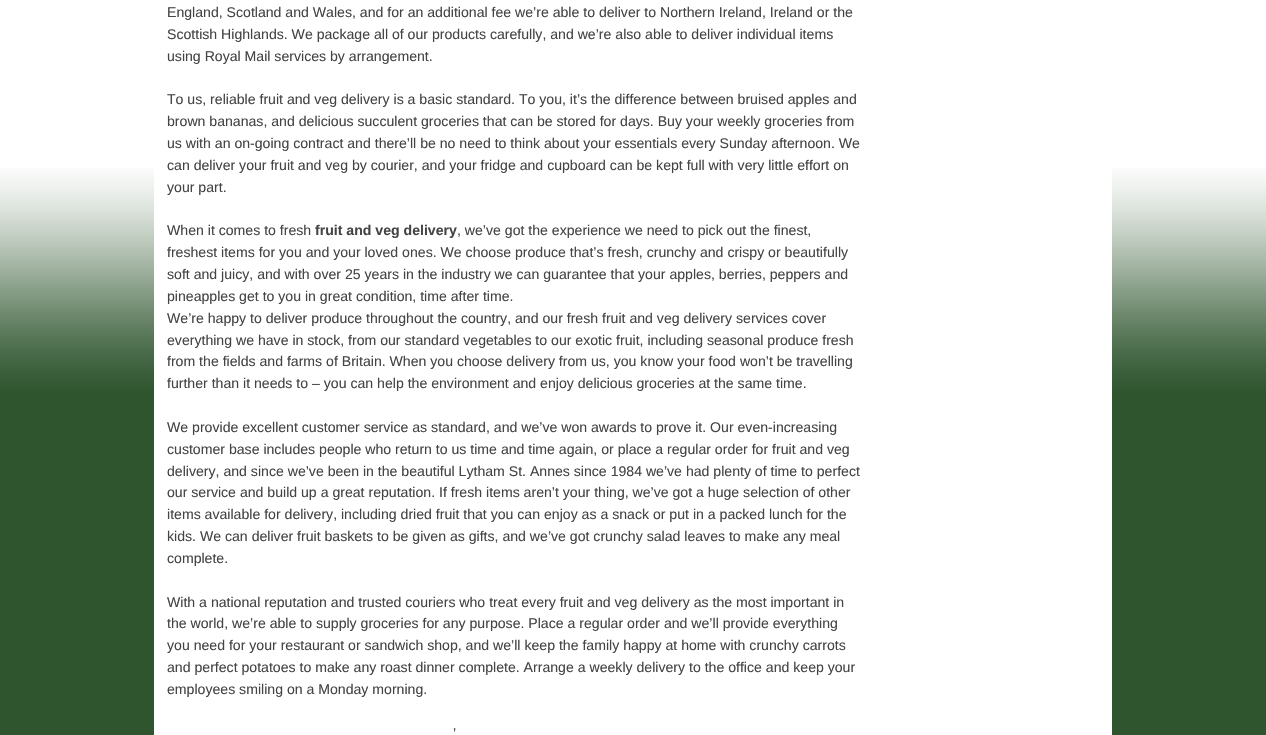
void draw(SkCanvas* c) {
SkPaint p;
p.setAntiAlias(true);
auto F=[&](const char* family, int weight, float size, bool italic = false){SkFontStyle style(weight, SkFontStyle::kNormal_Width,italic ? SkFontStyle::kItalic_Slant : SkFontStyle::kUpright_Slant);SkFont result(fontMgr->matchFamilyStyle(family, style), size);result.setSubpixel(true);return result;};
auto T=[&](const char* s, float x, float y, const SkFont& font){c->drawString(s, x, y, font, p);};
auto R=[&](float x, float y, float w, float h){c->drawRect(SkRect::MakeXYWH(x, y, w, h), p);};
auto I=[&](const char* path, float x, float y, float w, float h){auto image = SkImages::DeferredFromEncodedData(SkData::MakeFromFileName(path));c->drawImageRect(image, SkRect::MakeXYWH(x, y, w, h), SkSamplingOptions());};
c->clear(0xffffffff);
I("1.png",0,168,1266,567);
p.setColor(0xffffffff);
R(154,168,958,567);
auto f1 = F("Liberation Sans",400,14.1);
p.setColor(0xff444444);
T("England, Scotland and Wales, and for an additional fee we’re able to deliver to Northern Ireland, Ireland or the",167,17,f1);
T("Scottish Highlands. We package all of our products carefully, and we’re also able to deliver individual items",167,39,f1);
T("using Royal Mail services by arrangement.",167,61,f1);
T("To us, reliable fruit and veg delivery is a basic standard. To you, it’s the difference between bruised apples and",167,104,f1);
T("brown bananas, and delicious succulent groceries that can be stored for days. Buy your weekly groceries from",167,126,f1);
T("us with an on-going contract and there’ll be no need to think about your essentials every Sunday afternoon. We",167,148,f1);
T("can deliver your fruit and veg by courier, and your fridge and cupboard can be kept full with very little effort on",167,170,f1);
T("your part.",167,192,f1);
T("When it comes to fresh",167,235,f1);
auto f2 = F("Liberation Sans",700,14.1);
T("fruit and veg delivery",315,235,f2);
T(", we’ve got the experience we need to pick out the finest,",457,235,f1);
T("freshest items for you and your loved ones. We choose produce that’s fresh, crunchy and crispy or beautifully",167,257,f1);
T("soft and juicy, and with over 25 years in the industry we can guarantee that your apples, berries, peppers and",167,279,f1);
T("pineapples get to you in great condition, time after time.",167,301,f1);
T("We’re happy to deliver produce throughout the country, and our fresh fruit and veg delivery services cover",167,323,f1);
T("everything we have in stock, from our standard vegetables to our exotic fruit, including seasonal produce fresh",167,345,f1);
T("from the fields and farms of Britain. When you choose delivery from us, you know your food won’t be travelling",167,366,f1);
T("further than it needs to – you can help the environment and enjoy delicious groceries at the same time.",167,388,f1);
T("We provide excellent customer service as standard, and we’ve won awards to prove it. Our even-increasing",167,432,f1);
T("customer base includes people who return to us time and time again, or place a regular order for fruit and veg",167,454,f1);
T("delivery, and since we’ve been in the beautiful Lytham St. Annes since 1984 we’ve had plenty of time to perfect",167,476,f1);
T("our service and build up a great reputation. If fresh items aren’t your thing, we’ve got a huge selection of other",167,497,f1);
T("items available for delivery, including dried fruit that you can enjoy as a snack or put in a packed lunch for the",167,519,f1);
T("kids. We can deliver fruit baskets to be given as gifts, and we’ve got crunchy salad leaves to make any meal",167,541,f1);
T("complete.",167,563,f1);
T("With a national reputation and trusted couriers who treat every fruit and veg delivery as the most important in",167,607,f1);
T("the world, we’re able to supply groceries for any purpose. Place a regular order and we’ll provide everything",167,628,f1);
T("you need for your restaurant or sandwich shop, and we’ll keep the family happy at home with crunchy carrots",167,650,f1);
T("and perfect potatoes to make any roast dinner complete. Arrange a weekly delivery to the office and keep your",167,672,f1);
T("employees smiling on a Monday morning.",167,694,f1);
T("’",453,738,f1);
}
